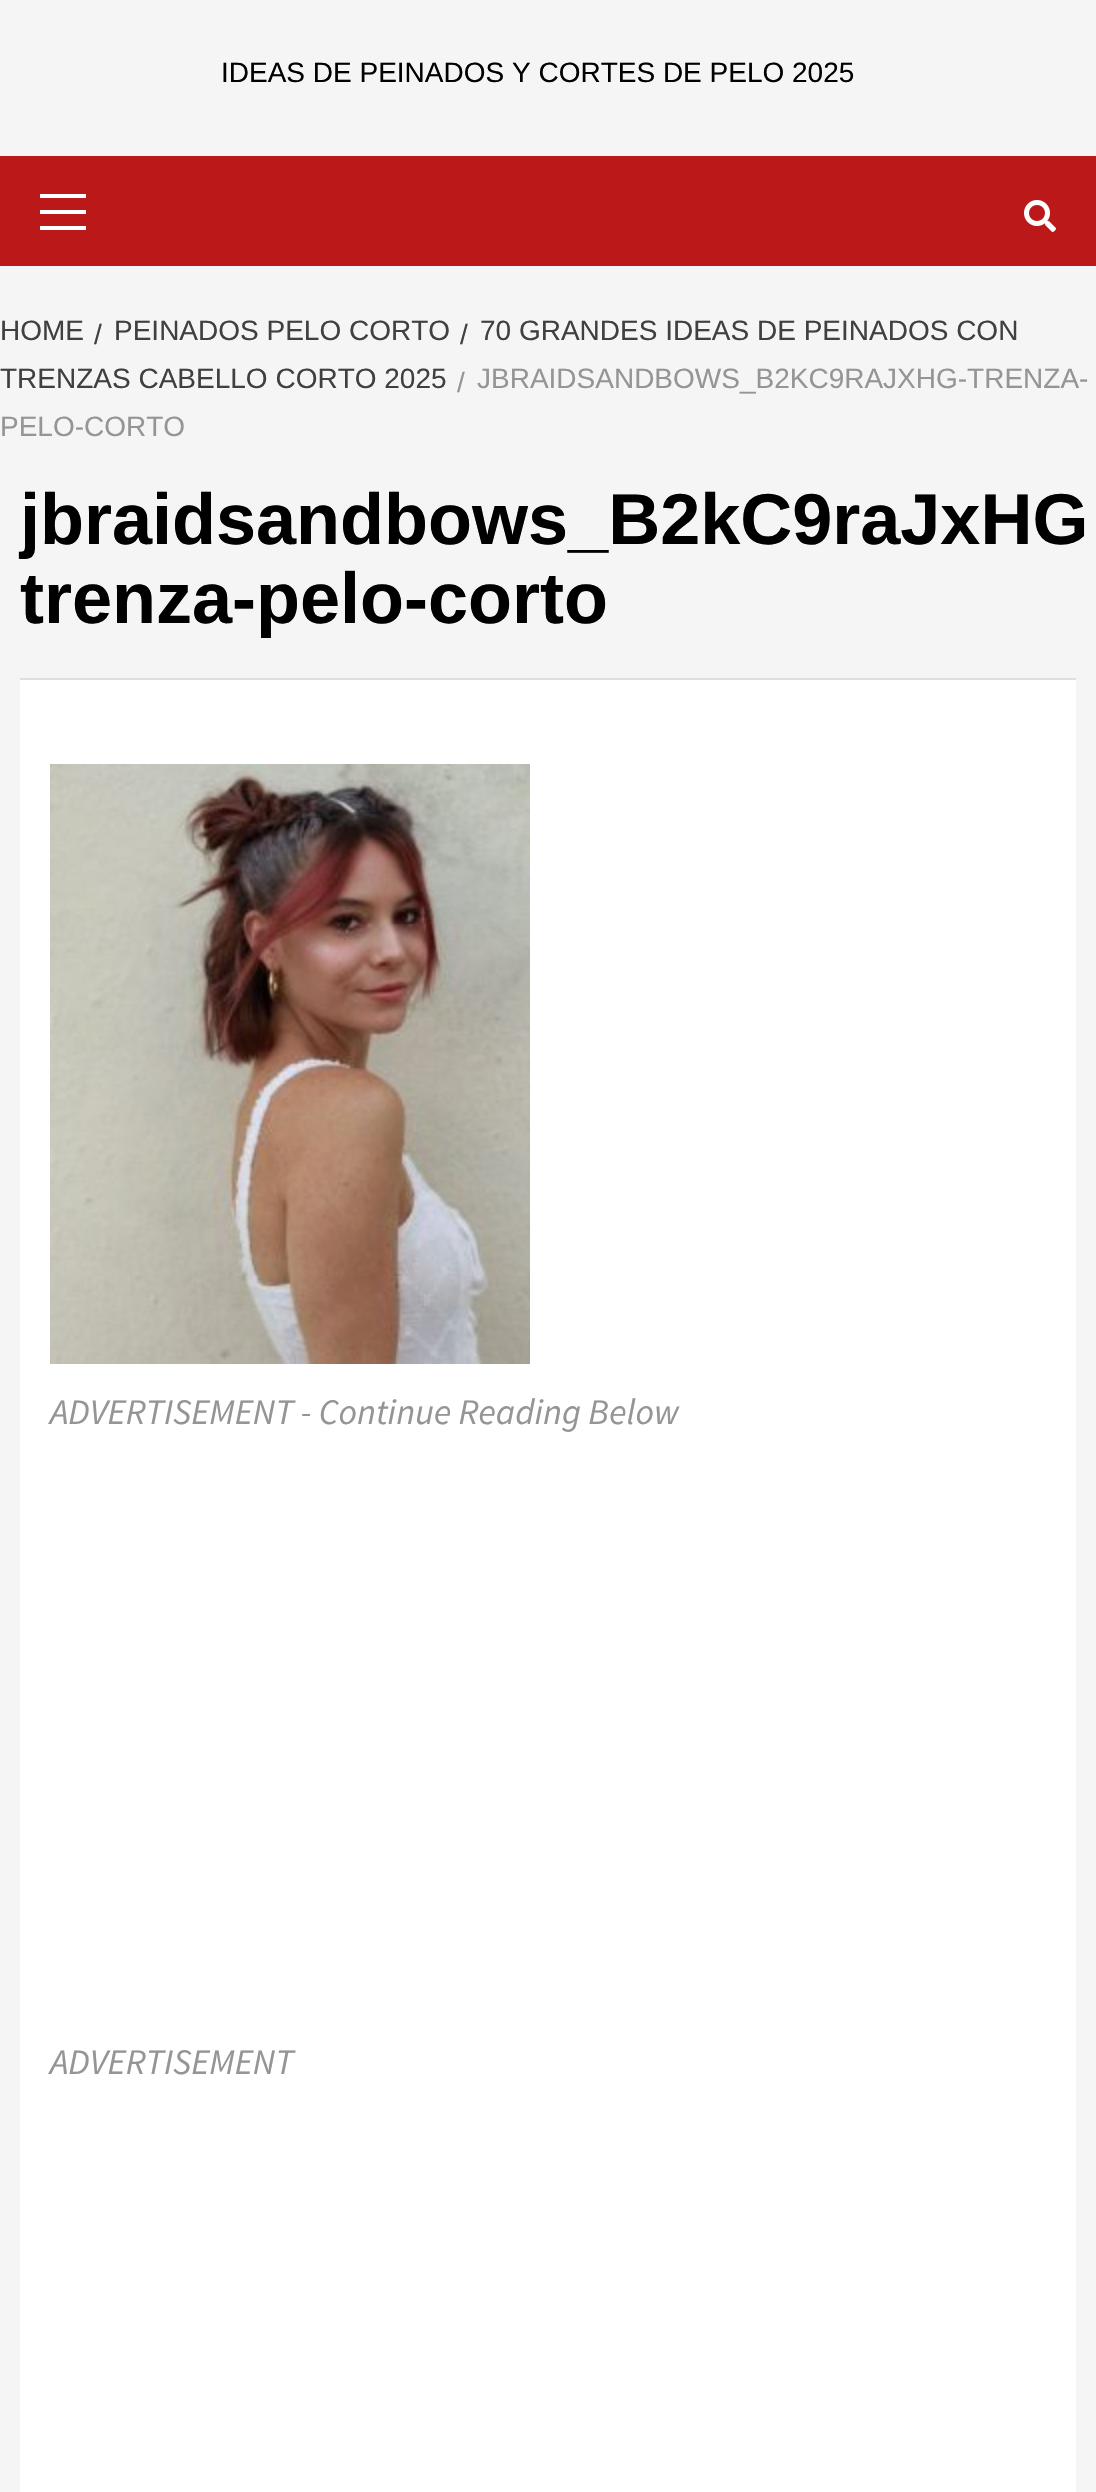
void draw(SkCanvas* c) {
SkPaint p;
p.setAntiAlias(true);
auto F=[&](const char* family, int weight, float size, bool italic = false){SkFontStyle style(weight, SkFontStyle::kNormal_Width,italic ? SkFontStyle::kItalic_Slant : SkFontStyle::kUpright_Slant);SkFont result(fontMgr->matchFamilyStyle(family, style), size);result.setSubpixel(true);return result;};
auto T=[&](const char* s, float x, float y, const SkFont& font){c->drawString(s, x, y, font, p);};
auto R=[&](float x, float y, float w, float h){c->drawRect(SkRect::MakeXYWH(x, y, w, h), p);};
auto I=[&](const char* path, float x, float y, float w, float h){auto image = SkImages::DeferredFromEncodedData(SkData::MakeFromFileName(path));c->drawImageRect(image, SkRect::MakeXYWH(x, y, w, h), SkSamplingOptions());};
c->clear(0xfff5f5f5);
auto f1 = F("Liberation Sans",400,28);
p.setColor(0xff000000);
T("IDEAS DE PEINADOS Y CORTES DE PELO 2025",221,82,f1);
p.setColor(0xffbb1919);
R(0,156,1096,110);
p.setColor(0xffffffff);
R(40,210,46,4);
R(40,194,46,4);
R(40,226,46,4);
I("1.png",1024,200,32,32);
p.setColor(0xff404040);
T("/",460,344,f1);
T("70 GRANDES IDEAS DE PEINADOS CON",480,340,f1);
T("TRENZAS CABELLO CORTO 2025",0,388,f1);
T("HOME",0,340,f1);
T("/",94,344,f1);
T("PEINADOS PELO CORTO",114,340,f1);
p.setColor(0xff959595);
T("/",457,392,f1);
T("JBRAIDSANDBOWS_B2KC9RAJXHG-TRENZA-",477,388,f1);
T("PELO-CORTO",0,436,f1);
p.setColor(0xffffffff);
R(20,680,1056,1812);
p.setColor(0xffdedede);
R(20,678,1056,2);
auto f2 = F("Liberation Sans",700,72);
p.setColor(0xff000000);
T("jbraidsandbows_B2kC9raJxHG",20,544,f2);
T("trenza-pelo-corto",20,623,f2);
I("2.png",50,764,480,600);
auto f3 = F("Source Sans Pro",400,36,true);
p.setColor(0xff959595);
T("ADVERTISEMENT - Continue Reading Below",50,1424,f3);
T("ADVERTISEMENT",50,2074,f3);
}
